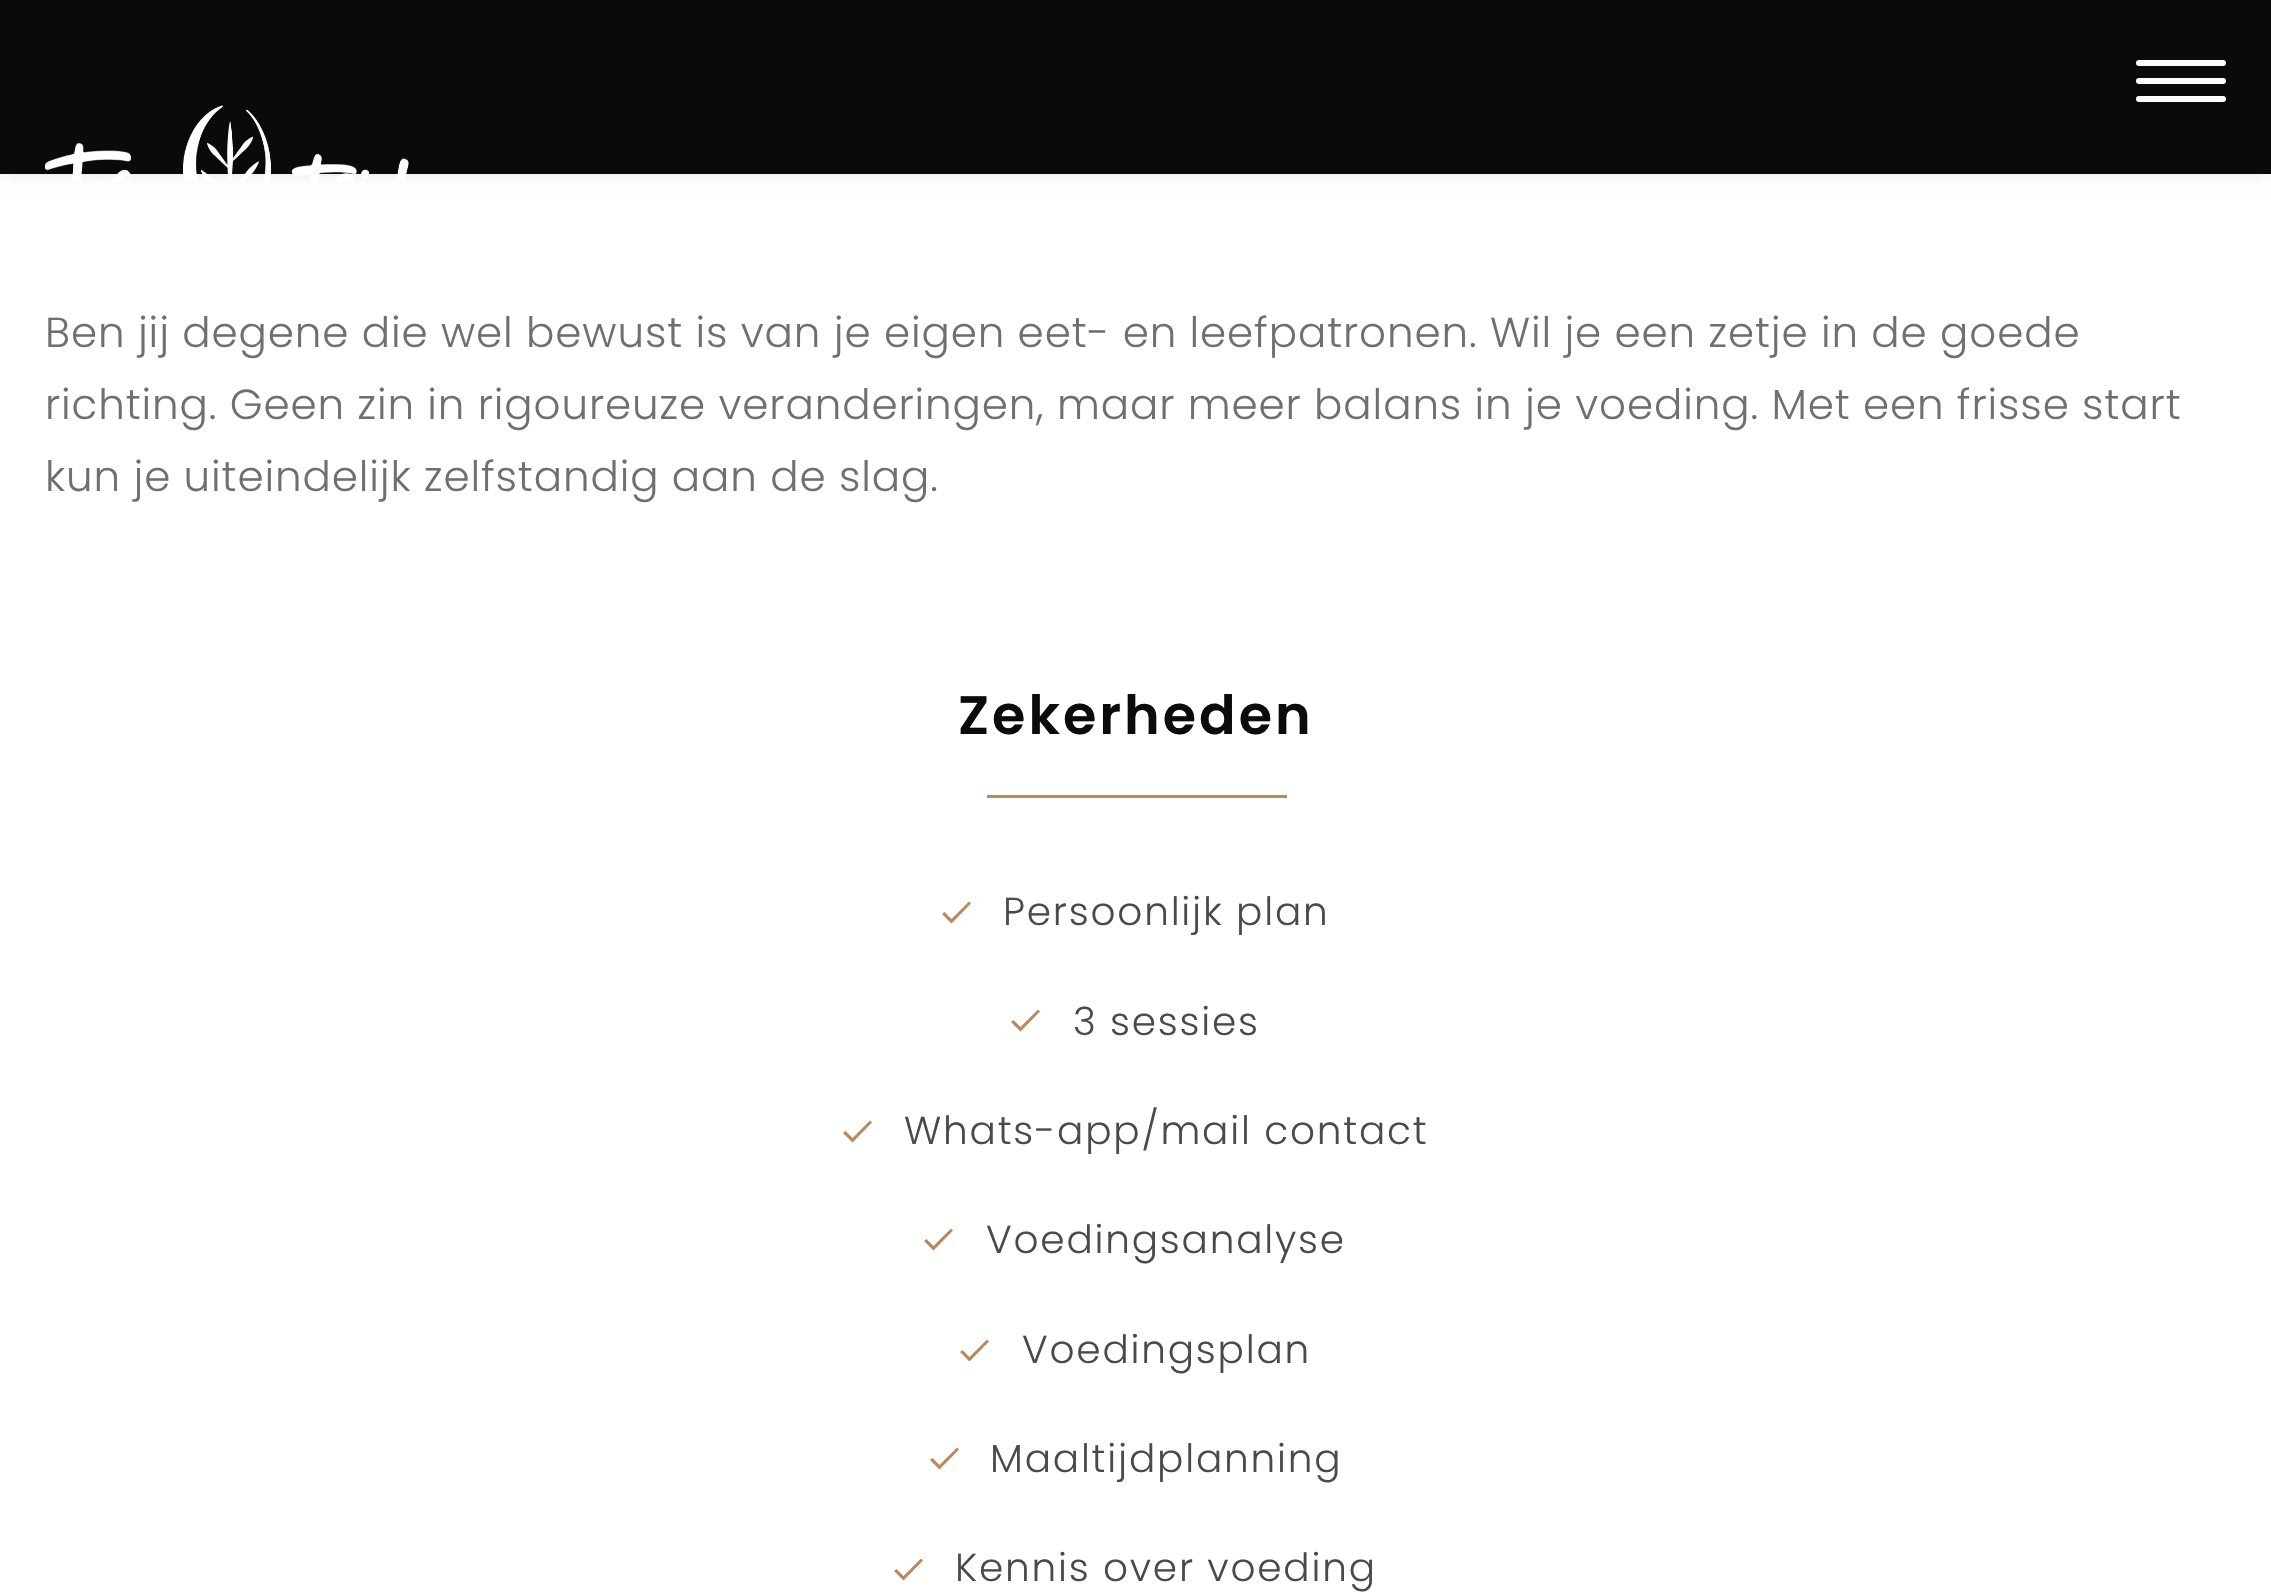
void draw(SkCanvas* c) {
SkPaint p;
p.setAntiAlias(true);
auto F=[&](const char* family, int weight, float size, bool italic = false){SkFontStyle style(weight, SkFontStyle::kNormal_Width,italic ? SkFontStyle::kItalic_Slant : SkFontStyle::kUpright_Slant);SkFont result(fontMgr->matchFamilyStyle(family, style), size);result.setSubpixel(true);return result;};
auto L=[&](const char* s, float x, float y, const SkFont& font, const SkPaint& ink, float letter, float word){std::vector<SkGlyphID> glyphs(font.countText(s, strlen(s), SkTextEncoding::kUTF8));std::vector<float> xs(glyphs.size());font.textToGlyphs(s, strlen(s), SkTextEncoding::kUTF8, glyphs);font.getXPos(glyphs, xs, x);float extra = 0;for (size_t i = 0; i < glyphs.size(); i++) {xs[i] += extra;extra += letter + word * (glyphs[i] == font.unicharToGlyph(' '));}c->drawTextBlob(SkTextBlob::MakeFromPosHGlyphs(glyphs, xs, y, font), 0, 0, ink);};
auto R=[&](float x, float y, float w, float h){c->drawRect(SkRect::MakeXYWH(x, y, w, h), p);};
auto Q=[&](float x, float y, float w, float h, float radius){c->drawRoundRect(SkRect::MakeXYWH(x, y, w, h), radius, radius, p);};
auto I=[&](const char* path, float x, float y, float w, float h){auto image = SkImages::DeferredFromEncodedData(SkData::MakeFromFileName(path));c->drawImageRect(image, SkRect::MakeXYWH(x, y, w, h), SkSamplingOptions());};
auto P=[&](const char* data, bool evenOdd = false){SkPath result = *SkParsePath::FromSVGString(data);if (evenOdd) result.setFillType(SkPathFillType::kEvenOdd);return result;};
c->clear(0xffffffff);
p.setColor(0x1a000000);
p.setMaskFilter(SkMaskFilter::MakeBlur(kNormal_SkBlurStyle, 7.5));
c->drawRect(SkRect::MakeXYWH(0,0,2271,174),p);
p.setMaskFilter(nullptr);
p.setColor(0xff0a0a0a);
R(0,0,2271,174);
p.setColor(0xffffffff);
Q(2136,60,90,6,3);
Q(2136,78,90,6,3);
Q(2136,96,90,6,3);
I("1.png",45,105,364,77);
auto f1 = F("Poppins",300,42);
p.setColor(0xff6f6f6f);
L("Ben jij degene die wel bewust is van je eigen eet- en leefpatronen. Wil je een zetje in de goede",45,347,f1,p,.9,0);
L("richting. Geen zin in rigoureuze veranderingen, maar meer balans in je voeding. Met een frisse start",45,419,f1,p,.9,0);
L("kun je uiteindelijk zelfstandig aan de slag.",45,491,f1,p,.9,0);
auto f2 = F("Poppins",600,54);
p.setColor(0xff0b0b0b);
L("Zekerheden",958,734,f2,p,3,0);
p.setColor(0xffbb885d);
R(987,795,300,3);
c->drawPath(P("M951.5 919l17.5-17.5l2 2l-19.5 20l-9.5-9.5l2.5-2z"),p);
auto f3 = F("Poppins",300,39);
p.setColor(0xff4a4a4a);
L("Persoonlijk plan",1003,925,f3,p,1.8,0);
p.setColor(0xffbb885d);
c->drawPath(P("M1020.5 1027l17.5-17.5l2 2l-19.5 20l-9.5-9.5l2.5-2z"),p);
p.setColor(0xff4a4a4a);
L("3 sessies",1073,1035,f3,p,1.8,0);
p.setColor(0xffbb885d);
c->drawPath(P("M852.5 1138l17.5-17.5l2 2l-19.5 20l-9.5-9.5l2.5-2z"),p);
p.setColor(0xff4a4a4a);
L("Whats-app/mail contact",904,1144,f3,p,1.8,0);
p.setColor(0xffbb885d);
c->drawPath(P("M933.5 1246l17.5-17.5l2 2l-19.5 20l-9.5-9.5l2.5-2z"),p);
p.setColor(0xff4a4a4a);
L("Voedingsanalyse",986,1253,f3,p,1.8,0);
p.setColor(0xffbb885d);
c->drawPath(P("M969.5 1357l17.5-17.5l2 2l-19.5 20l-9.5-9.5l2.5-2z"),p);
p.setColor(0xff4a4a4a);
L("Voedingsplan",1022,1363,f3,p,1.8,0);
p.setColor(0xffbb885d);
c->drawPath(P("M939.5 1465l17.5-17.5l2 2l-19.5 20l-9.5-9.5l2.5-2z"),p);
p.setColor(0xff4a4a4a);
L("Maaltijdplanning",990,1472,f3,p,1.8,0);
p.setColor(0xffbb885d);
c->drawPath(P("M903.5 1576l17.5-17.5l2 2l-19.5 20l-9.5-9.5l2.5-2z"),p);
p.setColor(0xff4a4a4a);
L("Kennis over voeding",955,1581,f3,p,1.8,0);
}
